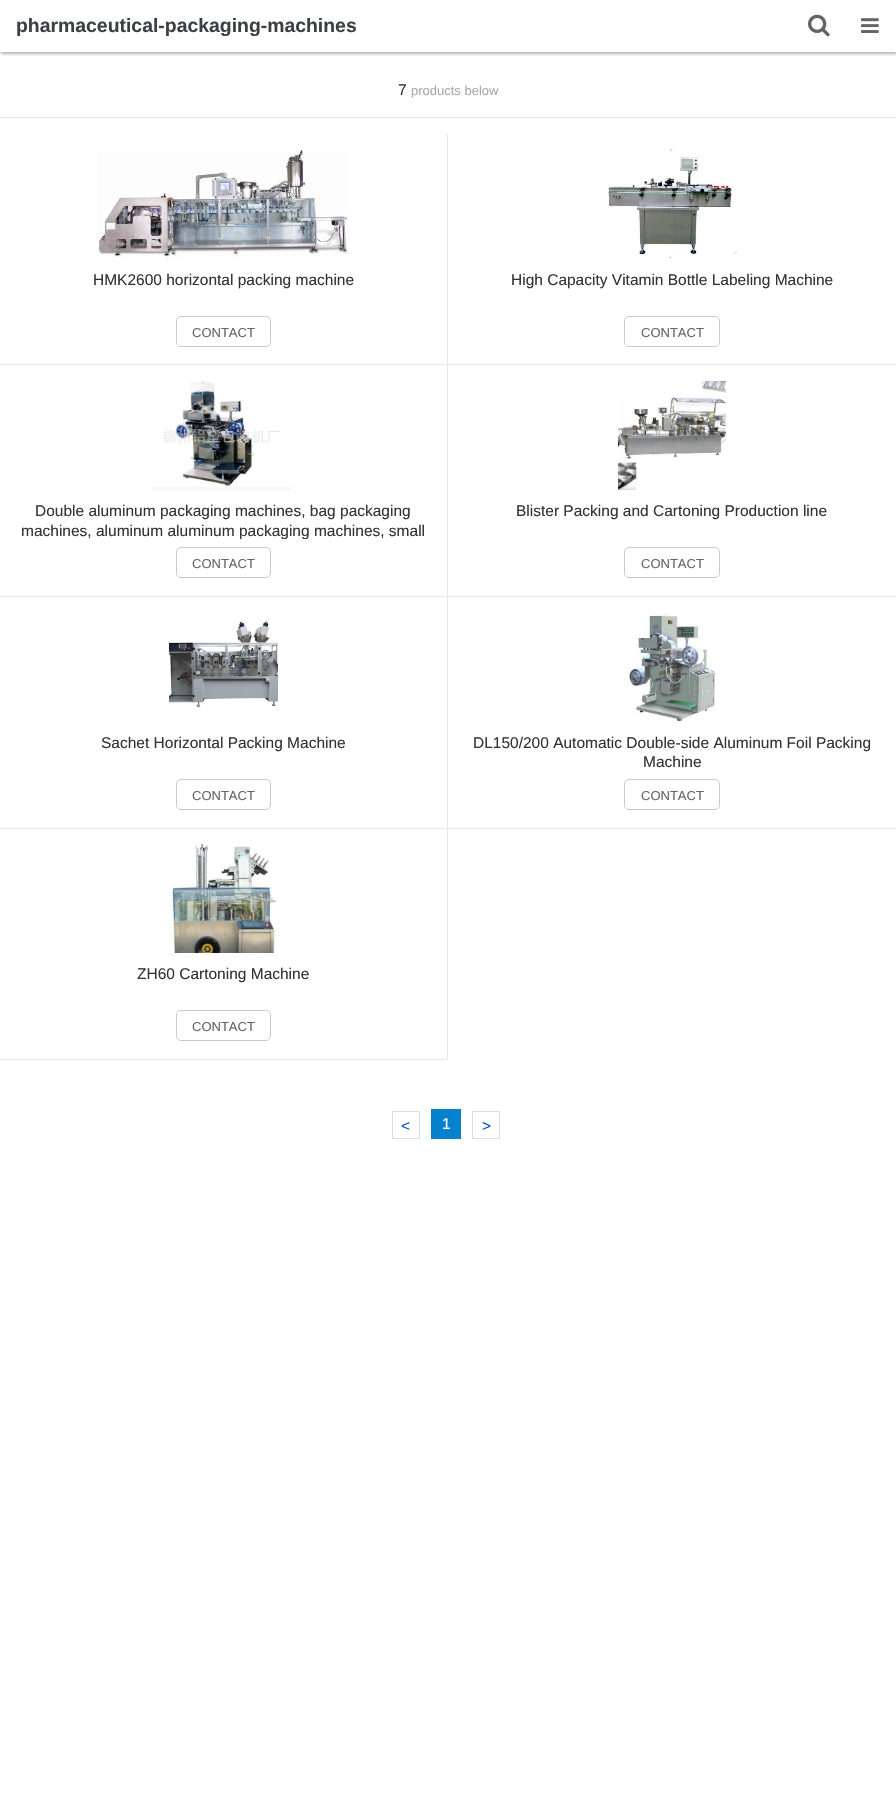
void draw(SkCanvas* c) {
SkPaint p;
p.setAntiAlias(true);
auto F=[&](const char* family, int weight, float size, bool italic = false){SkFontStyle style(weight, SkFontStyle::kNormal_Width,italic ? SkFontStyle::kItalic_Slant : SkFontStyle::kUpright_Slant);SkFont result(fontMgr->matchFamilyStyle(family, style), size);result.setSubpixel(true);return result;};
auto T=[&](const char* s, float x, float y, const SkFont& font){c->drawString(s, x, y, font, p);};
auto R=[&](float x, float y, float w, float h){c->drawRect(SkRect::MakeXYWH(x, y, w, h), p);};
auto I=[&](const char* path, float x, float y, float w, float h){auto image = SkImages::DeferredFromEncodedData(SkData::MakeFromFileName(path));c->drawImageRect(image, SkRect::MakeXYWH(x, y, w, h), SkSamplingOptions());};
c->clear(0xffffffff);
c->save();
c->clipRect(SkRect::MakeXYWH(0,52,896,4));
p.setColor(0x4d000000);
p.setMaskFilter(SkMaskFilter::MakeBlur(kNormal_SkBlurStyle, 1.5));
c->drawRect(SkRect::MakeXYWH(1,2,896,52),p);
p.setMaskFilter(nullptr);
c->restore();
auto f1 = F("Liberation Sans",700,19.4);
p.setColor(0xff3b4043);
T("pharmaceutical-packaging-machines",16,32,f1);
I("1.png",808,14,22,23);
I("2.png",861,18,18,15);
auto f2 = F("Liberation Sans",400,15.5);
p.setColor(0xff323333);
T("7",398,95,f2);
auto f3 = F("Liberation Sans",400,13);
p.setColor(0xffa8a9a9);
T("products below",411,95,f3);
p.setColor(0xffe6e6e6);
R(0,117,896,1);
R(447,134,1,926);
R(0,364,896,1);
I("3.png",98,150,250,107);
p.setColor(0xff323333);
T("HMK2600 horizontal packing machine",93,285,f2);
p.setStroke(true);
p.setStrokeWidth(1);
p.setColor(0xffcacaca);
c->drawRoundRect(SkRect::MakeXYWH(176.5,316.5,94,30),4.5,4.5,p);
p.setStroke(false);
p.setColor(0xff646565);
T("CONTACT",192,337,f3);
I("4.png",608,149,129,109);
p.setColor(0xff323333);
T("High Capacity Vitamin Bottle Labeling Machine",511,285,f2);
p.setStroke(true);
p.setColor(0xffcacaca);
c->drawRoundRect(SkRect::MakeXYWH(624.5,316.5,95,30),4.5,4.5,p);
p.setStroke(false);
p.setColor(0xff646565);
T("CONTACT",641,337,f3);
p.setColor(0xffe6e6e6);
R(0,596,896,1);
I("5.png",152,381,139,109);
p.setColor(0xff323333);
T("Double aluminum packaging machines, bag packaging",35,516,f2);
c->save();
c->clipRect(SkRect::MakeXYWH(4,497,439,42));
T("machines, aluminum aluminum packaging machines, small",21,536,f2);
c->restore();
p.setStroke(true);
p.setColor(0xffcacaca);
c->drawRoundRect(SkRect::MakeXYWH(176.5,547.5,94,30),4.5,4.5,p);
p.setStroke(false);
p.setColor(0xff646565);
T("CONTACT",192,568,f3);
I("6.png",618,381,108,109);
p.setColor(0xff323333);
T("Blister Packing and Cartoning Production line",516,516,f2);
p.setStroke(true);
p.setColor(0xffcacaca);
c->drawRoundRect(SkRect::MakeXYWH(624.5,547.5,95,30),4.5,4.5,p);
p.setStroke(false);
p.setColor(0xff646565);
T("CONTACT",641,568,f3);
p.setColor(0xffe6e6e6);
R(0,828,896,1);
I("7.png",169,621,109,87);
p.setColor(0xff323333);
T("Sachet Horizontal Packing Machine",101,748,f2);
p.setStroke(true);
p.setColor(0xffcacaca);
c->drawRoundRect(SkRect::MakeXYWH(176.5,779.5,94,30),4.5,4.5,p);
p.setStroke(false);
p.setColor(0xff646565);
T("CONTACT",192,800,f3);
I("8.png",627,613,89,108);
p.setColor(0xff323333);
T("DL150/200 Automatic Double-side Aluminum Foil Packing",473,748,f2);
T("Machine",643,767,f2);
p.setStroke(true);
p.setColor(0xffcacaca);
c->drawRoundRect(SkRect::MakeXYWH(624.5,779.5,95,30),4.5,4.5,p);
p.setStroke(false);
p.setColor(0xff646565);
T("CONTACT",641,800,f3);
p.setColor(0xffe6e6e6);
R(0,1059,448,1);
I("9.png",171,844,105,109);
p.setColor(0xff323333);
T("ZH60 Cartoning Machine",137,979,f2);
p.setStroke(true);
p.setColor(0xffcacaca);
c->drawRoundRect(SkRect::MakeXYWH(176.5,1010.5,94,30),4.5,4.5,p);
p.setStroke(false);
p.setColor(0xff646565);
T("CONTACT",192,1031,f3);
p.setStroke(true);
p.setColor(0xffdae0e8);
c->drawRect(SkRect::MakeXYWH(392.5,1111.5,27,27),p);
p.setStroke(false);
p.setColor(0xff0053b3);
T("<",401,1131,f2);
p.setColor(0xff0681cd);
R(431,1109,30,30);
p.setColor(0xffffffff);
T("1",442,1129,f2);
p.setStroke(true);
p.setColor(0xffdae0e8);
c->drawRect(SkRect::MakeXYWH(472.5,1111.5,27,27),p);
p.setStroke(false);
p.setColor(0xff0053b3);
T(">",482,1131,f2);
}
